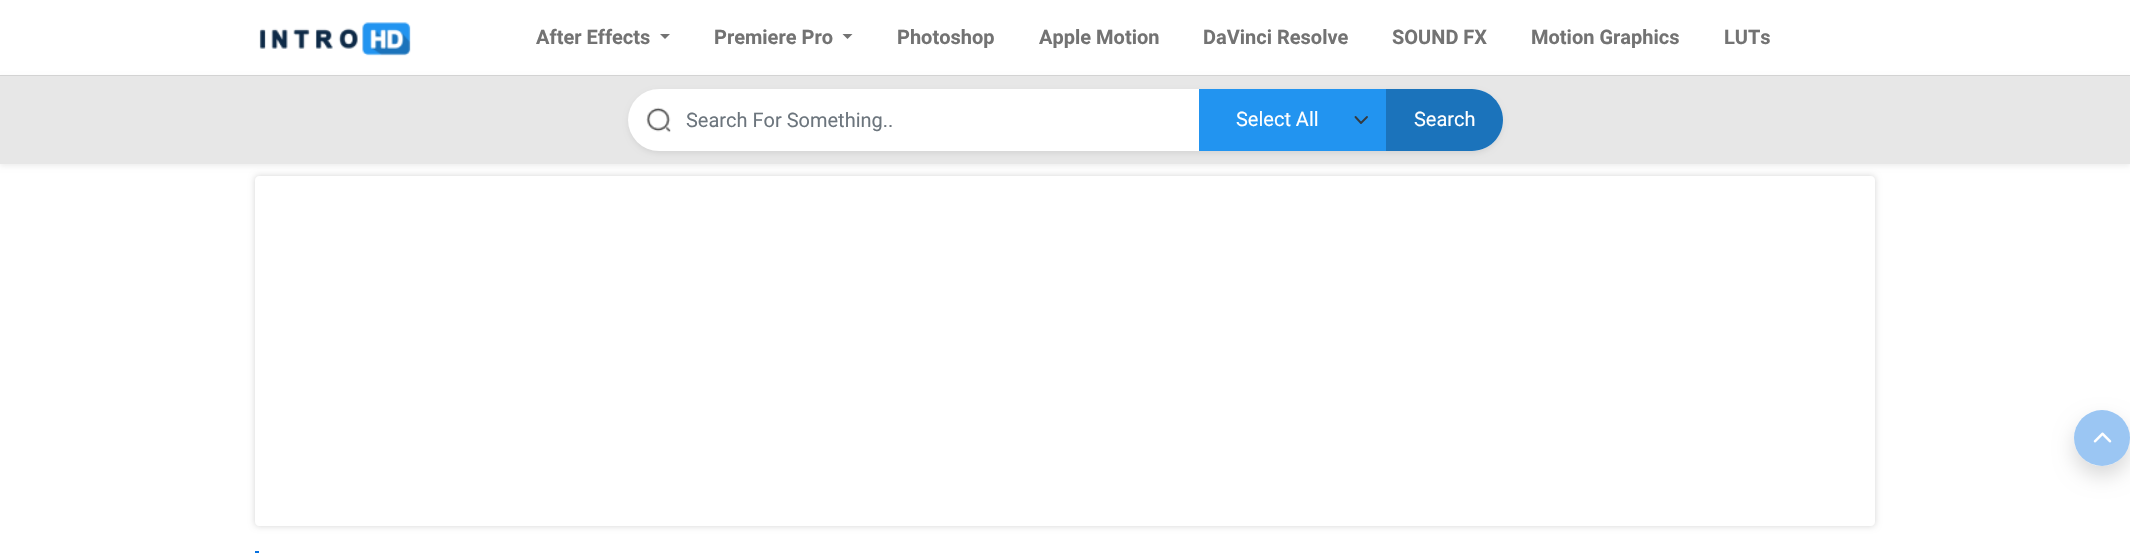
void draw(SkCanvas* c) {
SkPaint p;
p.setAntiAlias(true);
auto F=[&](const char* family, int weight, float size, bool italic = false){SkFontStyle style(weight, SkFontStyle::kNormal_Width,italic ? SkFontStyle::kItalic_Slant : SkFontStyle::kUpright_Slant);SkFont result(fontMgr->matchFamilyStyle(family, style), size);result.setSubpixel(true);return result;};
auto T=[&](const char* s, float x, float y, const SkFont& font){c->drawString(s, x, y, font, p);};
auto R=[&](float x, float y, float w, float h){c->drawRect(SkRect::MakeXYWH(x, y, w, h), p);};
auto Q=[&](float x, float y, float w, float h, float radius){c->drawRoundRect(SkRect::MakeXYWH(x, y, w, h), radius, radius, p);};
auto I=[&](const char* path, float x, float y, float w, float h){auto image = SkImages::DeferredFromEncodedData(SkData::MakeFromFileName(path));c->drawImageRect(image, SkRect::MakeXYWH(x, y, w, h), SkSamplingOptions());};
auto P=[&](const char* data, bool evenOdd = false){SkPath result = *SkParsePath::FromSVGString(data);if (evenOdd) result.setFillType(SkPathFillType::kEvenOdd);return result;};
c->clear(0xffffffff);
I("1.png",259,22,152,34);
auto f1 = F("Roboto",700,20);
p.setColor(0xff737373);
T("After Effects",536,44,f1);
c->drawPath(P("M660 34h10l-5 5z"),p);
T("Premiere Pro",714,44,f1);
c->drawPath(P("M842.5 34h10l-5 5z"),p);
T("Photoshop",897,44,f1);
T("Apple Motion",1039,44,f1);
T("DaVinci Resolve",1203,44,f1);
T("SOUND FX",1392,44,f1);
T("Motion Graphics",1531,44,f1);
T("LUTs",1724,44,f1);
p.setColor(0x12000000);
p.setMaskFilter(SkMaskFilter::MakeBlur(kNormal_SkBlurStyle, 2.5));
c->drawRect(SkRect::MakeXYWH(0,78,2130,88),p);
p.setMaskFilter(nullptr);
p.setColor(0xffe7e7e7);
R(0,76,2130,88);
p.setColor(0xffd3d3d3);
R(0,75,2130,1);
p.setColor(0x12000000);
p.setMaskFilter(SkMaskFilter::MakeBlur(kNormal_SkBlurStyle, 2.5));
c->drawRoundRect(SkRect::MakeXYWH(628,91,875,63),31.5,31.5,p);
p.setMaskFilter(nullptr);
p.setColor(0xffffffff);
Q(628,89,875,62,31);
I("2.png",646,107,25,26);
auto f2 = F("Roboto",400,20);
p.setColor(0xff6c757d);
T("Search For Something..",686,127,f2);
p.setColor(0xff2294f0);
R(1199,89,187,62);
p.setStroke(true);
p.setStrokeWidth(1.9);
p.setStrokeCap(SkPaint::kRound_Cap);
p.setStrokeJoin(SkPaint::kRound_Join);
p.setColor(0xff343a40);
c->drawPath(P("M1355.5 117l5.5 6l6-6"),p);
p.setStroke(false);
p.setColor(0xffffffff);
T("Select All",1236,126,f2);
p.setColor(0xff1b73bb);
c->drawPath(P("M1386 89h86c17 0 31 14 31 31c0 17-14 31-31 31h-86z"),p);
p.setColor(0xffffffff);
T("Search",1414,126,f2);
c->save();
c->clipPath(P("M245 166h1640v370h-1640zm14 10h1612c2 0 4 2 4 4v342c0 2-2 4-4 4h-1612c-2 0-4-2-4-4v-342c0-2 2-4 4-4z",true),true);
p.setColor(0x2b000000);
p.setMaskFilter(SkMaskFilter::MakeBlur(kNormal_SkBlurStyle, 3));
c->drawRoundRect(SkRect::MakeXYWH(255,176,1620,350),4,4,p);
p.setMaskFilter(nullptr);
c->restore();
p.setColor(0xff0671e0);
R(255,551,4,2);
c->save();
c->clipPath(P("M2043 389h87v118h-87zm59 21c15.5 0 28 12.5 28 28c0 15.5-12.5 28-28 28c-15.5 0-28-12.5-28-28c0-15.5 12.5-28 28-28z",true),true);
p.setColor(0x26000000);
p.setMaskFilter(SkMaskFilter::MakeBlur(kNormal_SkBlurStyle, 10));
c->drawRoundRect(SkRect::MakeXYWH(2074,420,56,56),28,28,p);
p.setMaskFilter(nullptr);
c->restore();
p.setColor(0x660671e0);
c->drawCircle(2102,438,28,p);
I("3.png",2093,432,19,11);
}
